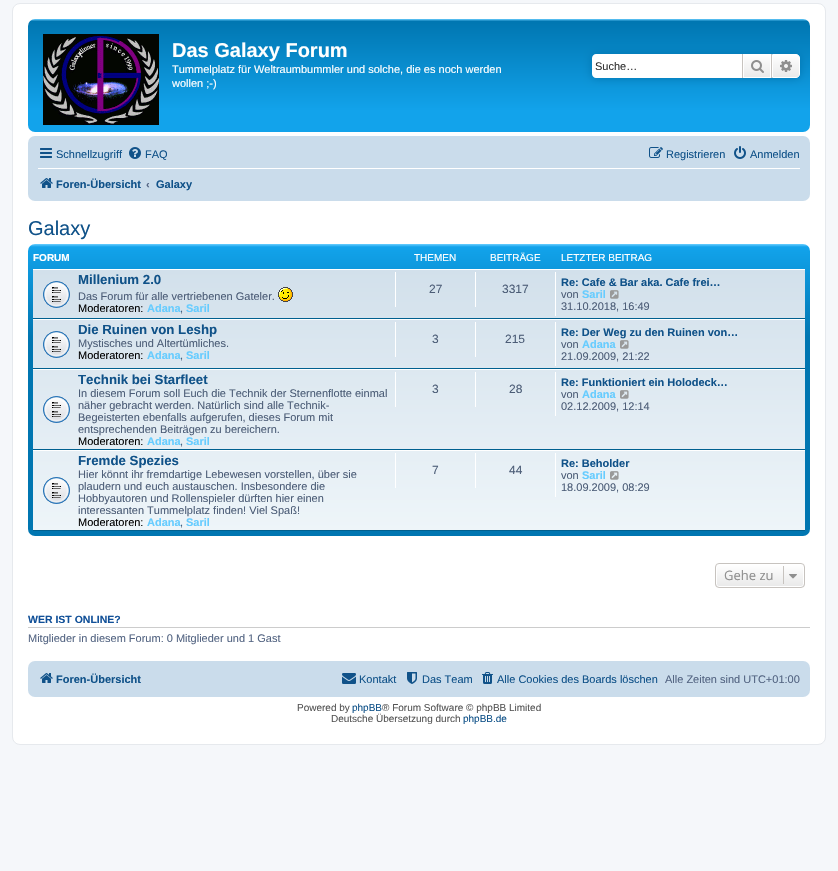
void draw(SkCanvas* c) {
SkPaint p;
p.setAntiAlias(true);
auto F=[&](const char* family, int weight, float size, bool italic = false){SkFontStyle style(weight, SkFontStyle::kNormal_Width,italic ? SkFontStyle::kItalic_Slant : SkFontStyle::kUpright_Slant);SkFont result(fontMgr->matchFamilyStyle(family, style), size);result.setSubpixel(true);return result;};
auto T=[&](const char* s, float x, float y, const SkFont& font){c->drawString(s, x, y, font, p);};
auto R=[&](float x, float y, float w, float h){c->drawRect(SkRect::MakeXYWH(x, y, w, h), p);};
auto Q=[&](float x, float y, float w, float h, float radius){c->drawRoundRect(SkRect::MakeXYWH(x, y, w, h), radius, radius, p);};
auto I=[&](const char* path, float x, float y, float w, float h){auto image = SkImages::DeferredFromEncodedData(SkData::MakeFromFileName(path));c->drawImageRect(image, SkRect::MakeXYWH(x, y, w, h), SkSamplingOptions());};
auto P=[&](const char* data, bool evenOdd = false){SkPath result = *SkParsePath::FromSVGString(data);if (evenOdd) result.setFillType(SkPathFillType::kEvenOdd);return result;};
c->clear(0xfff5f7fa);
p.setColor(0xffffffff);
c->drawRoundRect(SkRect::MakeXYWH(12.5,3.5,813,741),7.5,7.5,p);
p.setStroke(true);
p.setStrokeWidth(1);
p.setColor(0xffe6e9ed);
c->drawRoundRect(SkRect::MakeXYWH(12.5,3.5,813,741),7.5,7.5,p);
p.setStroke(false);
{
const SkColor colors[] = {0xff6aceff,0xff0076b1,0xff12a3eb,0xff12a3eb};
const float stops[] = {0,.02,.81,1};
const SkPoint ends[] = {{419,19}, {419,132}};
p.setShader(SkGradientShader::MakeLinear(ends, colors, stops, 4, SkTileMode::kClamp));
p.setAlpha(255);
}
Q(28,19,782,113,7);
I("1.png",43,34,116,91);
auto f1 = F("Liberation Sans",700,20);
p.setShader(nullptr);
p.setColor(0xffffffff);
T("Das Galaxy Forum",172,57,f1);
auto f2 = F("Liberation Sans",400,11);
T("Tummelplatz für Weltraumbummler und solche, die es noch werden",172,73,f2);
T("wollen ;-)",172,87,f2);
p.setColor(0xff0075b0);
p.setMaskFilter(SkMaskFilter::MakeBlur(kNormal_SkBlurStyle, 5));
c->drawRoundRect(SkRect::MakeXYWH(592,54,208,24),4,4,p);
p.setMaskFilter(nullptr);
p.setColor(0xffffffff);
c->drawPath(P("M596 54h146v24h-146c-2 0-4-2-4-4v-16c0-2 2-4 4-4z"),p);
p.setColor(0xff333333);
T("Suche…",595,70,f2);
{
const SkColor colors[] = {0xffffffff,0xffe9e9e9};
const float stops[] = {0,1};
const SkPoint ends[] = {{757,54}, {757,78}};
p.setShader(SkGradientShader::MakeLinear(ends, colors, stops, 2, SkTileMode::kClamp));
p.setAlpha(255);
}
R(744,55,26,22);
p.setStroke(true);
p.setShader(nullptr);
p.setColor(0xffffffff);
c->drawRect(SkRect::MakeXYWH(743.5,54.5,27,23),p);
p.setStroke(false);
p.setColor(0xffc7c3bf);
R(771,54,1,24);
R(742,54,1,24);
I("2.png",751,60,13,13);
{
const SkColor colors[] = {0xffffffff,0xffe9e9e9};
const float stops[] = {0,1};
const SkPoint ends[] = {{786,54}, {786,78}};
p.setShader(SkGradientShader::MakeLinear(ends, colors, stops, 2, SkTileMode::kClamp));
p.setAlpha(255);
}
c->drawPath(P("M772.5 54.5h23.5c2 0 3.5 1.5 3.5 3.5v16c0 2-1.5 3.5-3.5 3.5h-23.5z"),p);
p.setStroke(true);
p.setShader(nullptr);
p.setColor(0xffffffff);
c->drawPath(P("M772.5 54.5h23.5c2 0 3.5 1.5 3.5 3.5v16c0 2-1.5 3.5-3.5 3.5h-23.5z"),p);
I("3.png",780,60,12,12);
p.setStroke(false);
p.setColor(0xffcadceb);
Q(28,136,782,65,7);
I("4.png",40,148,12,10);
p.setColor(0xff105289);
T("Schnellzugriff",56,158,f2);
I("5.png",129,147,12,12);
T("FAQ",145,158,f2);
I("6.png",649,147,14,11);
T("Registrieren",666,158,f2);
I("7.png",734,146,12,13);
T("Anmelden",750,158,f2);
p.setColor(0xffffffff);
R(38,168,762,1);
I("8.png",40,178,13,10);
auto f3 = F("Liberation Sans",700,11);
p.setColor(0xff105289);
T("Foren-Übersicht",56,188,f3);
p.setColor(0xff536482);
T("‹",146,188,f3);
p.setColor(0xff105289);
T("Galaxy",156,188,f3);
auto f4 = F("Liberation Sans",400,20);
T("Galaxy",28,235,f4);
{
const SkColor colors[] = {0xff6aceff,0xff12a3eb,0xff0076b1,0xff0076b1};
const float stops[] = {0,.01,.32,1};
const SkPoint ends[] = {{419,244}, {419,536}};
p.setShader(SkGradientShader::MakeLinear(ends, colors, stops, 4, SkTileMode::kClamp));
p.setAlpha(255);
}
Q(28,244,782,292,7);
auto f5 = F("Liberation Sans",700,10);
p.setShader(nullptr);
p.setColor(0xffffffff);
T("FORUM",33,261,f5);
auto f6 = F("Liberation Sans",400,10);
T("THEMEN",414,261,f6);
T("BEITRÄGE",490,261,f6);
T("LETZTER BEITRAG",561,261,f6);
{
const SkColor colors[] = {0xffd2e0eb,0xffeef5f9};
const float stops[] = {0,1};
const SkPoint ends[] = {{419,269}, {419,531}};
p.setShader(SkGradientShader::MakeLinear(ends, colors, stops, 2, SkTileMode::kClamp));
p.setAlpha(255);
}
R(33,270,772,260);
p.setShader(nullptr);
p.setColor(0xffffffff);
R(33,269,772,1);
p.setColor(0xff00608f);
R(33,318,772,1);
I("9.png",43,281,27,27);
auto f7 = F("Liberation Sans",700,13.25);
p.setColor(0xff105289);
T("Millenium 2.0",78,284,f7);
p.setColor(0xff4c5d77);
T("Das Forum für alle vertriebenen Gateler.",78,300,f2);
I("10.png",278,287,15,15);
p.setColor(0xff000000);
T("Moderatoren:",78,312,f2);
p.setColor(0xff66ccff);
T("Adana",147,312,f3);
p.setColor(0xff4c5d77);
T(",",180,312,f2);
p.setColor(0xff66ccff);
T("Saril",186,312,f3);
p.setColor(0xffffffff);
R(395,272,1,35);
auto f8 = F("Liberation Sans",400,12);
p.setColor(0xff4c5d77);
T("27",429,293,f8);
p.setColor(0xffffffff);
R(475,272,1,35);
p.setColor(0xff4c5d77);
T("3317",502,293,f8);
p.setColor(0xffffffff);
R(555,272,1,44);
p.setColor(0xff105289);
T("Re: Cafe & Bar aka. Cafe frei…",561,286,f3);
p.setColor(0xff4c5d77);
T("von",561,298,f2);
p.setColor(0xff66ccff);
T("Saril",582,298,f3);
I("11.png",610,290,9,9);
p.setColor(0xff4c5d77);
T("31.10.2018, 16:49",561,310,f2);
p.setColor(0xffffffff);
R(33,319,772,1);
p.setColor(0xff00608f);
R(33,368,772,1);
I("12.png",43,331,27,27);
p.setColor(0xff105289);
T("Die Ruinen von Leshp",78,334,f7);
p.setColor(0xff4c5d77);
T("Mystisches und Altertümliches.",78,347,f2);
p.setColor(0xff000000);
T("Moderatoren:",78,359,f2);
p.setColor(0xff66ccff);
T("Adana",147,359,f3);
p.setColor(0xff4c5d77);
T(",",180,359,f2);
p.setColor(0xff66ccff);
T("Saril",186,359,f3);
p.setColor(0xffffffff);
R(395,322,1,35);
p.setColor(0xff4c5d77);
T("3",432,343,f8);
p.setColor(0xffffffff);
R(475,322,1,35);
p.setColor(0xff4c5d77);
T("215",505,343,f8);
p.setColor(0xffffffff);
R(555,322,1,44);
p.setColor(0xff105289);
T("Re: Der Weg zu den Ruinen von…",561,336,f3);
p.setColor(0xff4c5d77);
T("von",561,348,f2);
p.setColor(0xff66ccff);
T("Adana",582,348,f3);
I("13.png",620,340,9,9);
p.setColor(0xff4c5d77);
T("21.09.2009, 21:22",561,360,f2);
p.setColor(0xffffffff);
R(33,369,772,1);
p.setColor(0xff00608f);
R(33,449,772,1);
I("14.png",43,396,27,27);
p.setColor(0xff105289);
T("Technik bei Starfleet",78,384,f7);
p.setColor(0xff4c5d77);
T("In diesem Forum soll Euch die Technik der Sternenflotte einmal",78,397,f2);
T("näher gebracht werden. Natürlich sind alle Technik-",78,409,f2);
T("Begeisterten ebenfalls aufgerufen, dieses Forum mit",78,421,f2);
T("entsprechenden Beiträgen zu bereichern.",78,433,f2);
p.setColor(0xff000000);
T("Moderatoren:",78,445,f2);
p.setColor(0xff66ccff);
T("Adana",147,445,f3);
p.setColor(0xff4c5d77);
T(",",180,445,f2);
p.setColor(0xff66ccff);
T("Saril",186,445,f3);
p.setColor(0xffffffff);
R(395,372,1,35);
p.setColor(0xff4c5d77);
T("3",432,393,f8);
p.setColor(0xffffffff);
R(475,372,1,35);
p.setColor(0xff4c5d77);
T("28",509,393,f8);
p.setColor(0xffffffff);
R(555,372,1,44);
p.setColor(0xff105289);
T("Re: Funktioniert ein Holodeck…",561,386,f3);
p.setColor(0xff4c5d77);
T("von",561,398,f2);
p.setColor(0xff66ccff);
T("Adana",582,398,f3);
I("15.png",620,390,9,9);
p.setColor(0xff4c5d77);
T("02.12.2009, 12:14",561,410,f2);
p.setColor(0xffffffff);
R(33,450,772,1);
p.setColor(0xff00608f);
R(33,530,772,1);
I("16.png",43,477,27,27);
p.setColor(0xff105289);
T("Fremde Spezies",78,465,f7);
p.setColor(0xff4c5d77);
T("Hier könnt ihr fremdartige Lebewesen vorstellen, über sie",78,478,f2);
T("plaudern und euch austauschen. Insbesondere die",78,490,f2);
T("Hobbyautoren und Rollenspieler dürften hier einen",78,502,f2);
T("interessanten Tummelplatz finden! Viel Spaß!",78,514,f2);
p.setColor(0xff000000);
T("Moderatoren:",78,526,f2);
p.setColor(0xff66ccff);
T("Adana",147,526,f3);
p.setColor(0xff4c5d77);
T(",",180,526,f2);
p.setColor(0xff66ccff);
T("Saril",186,526,f3);
p.setColor(0xffffffff);
R(395,453,1,35);
p.setColor(0xff4c5d77);
T("7",432,474,f8);
p.setColor(0xffffffff);
R(475,453,1,35);
p.setColor(0xff4c5d77);
T("44",509,474,f8);
p.setColor(0xffffffff);
R(555,453,1,44);
p.setColor(0xff105289);
T("Re: Beholder",561,467,f3);
p.setColor(0xff4c5d77);
T("von",561,479,f2);
p.setColor(0xff66ccff);
T("Saril",582,479,f3);
I("17.png",610,471,9,9);
p.setColor(0xff4c5d77);
T("18.09.2009, 08:29",561,491,f2);
c->save();
c->clipPath(P("M719 563h82c2 0 4 2 4 4v17c0 2-2 4-4 4h-82c-2 0-4-2-4-4v-17c0-2 2-4 4-4z"),true);
{
const SkColor colors[] = {0xffffffff,0xffe9e9e9};
const float stops[] = {0,1};
const SkPoint ends[] = {{760,564}, {760,587}};
p.setShader(SkGradientShader::MakeLinear(ends, colors, stops, 2, SkTileMode::kClamp));
p.setAlpha(255);
}
R(715,564,90,23);
c->restore();
p.setStroke(true);
p.setShader(nullptr);
p.setColor(0xffffffff);
c->drawRoundRect(SkRect::MakeXYWH(716.5,564.5,87,22),2.5,2.5,p);
p.setColor(0xffc7c3bf);
c->drawRoundRect(SkRect::MakeXYWH(715.5,563.5,89,24),3.5,3.5,p);
auto f9 = F("Open Sans",400,13);
p.setStroke(false);
p.setColor(0xff8f8f8f);
T("Gehe zu",724,580,f9);
p.setColor(0xffc7c3bf);
R(783,566,1,18);
I("18.png",789,574,8,5);
p.setColor(0xffcccccc);
R(28,627,782,1);
auto f10 = F("Liberation Sans",700,10.5);
p.setColor(0xff115098);
T("WER IST ONLINE?",28,623,f10);
p.setColor(0xff536482);
T("Mitglieder in diesem Forum: 0 Mitglieder und 1 Gast",28,642,f2);
p.setColor(0xffcadceb);
Q(28,661,782,36,7);
I("8.png",40,673,13,10);
p.setColor(0xff105289);
T("Foren-Übersicht",56,683,f3);
I("19.png",342,673,14,11);
T("Kontakt",359,683,f2);
I("20.png",407,672,10,12);
T("Das Team",422,683,f2);
I("21.png",482,672,11,12);
T("Alle Cookies des Boards löschen",497,683,f2);
p.setColor(0xff536482);
T("Alle Zeiten sind UTC+01:00",665,683,f2);
p.setColor(0xff555555);
T("Powered by",297,711,f6);
p.setColor(0xff105289);
T("phpBB",352,711,f6);
p.setColor(0xff555555);
T("® Forum Software © phpBB Limited",382,711,f6);
T("Deutsche Übersetzung durch",331,722,f6);
p.setColor(0xff105289);
T("phpBB.de",463,722,f6);
}
